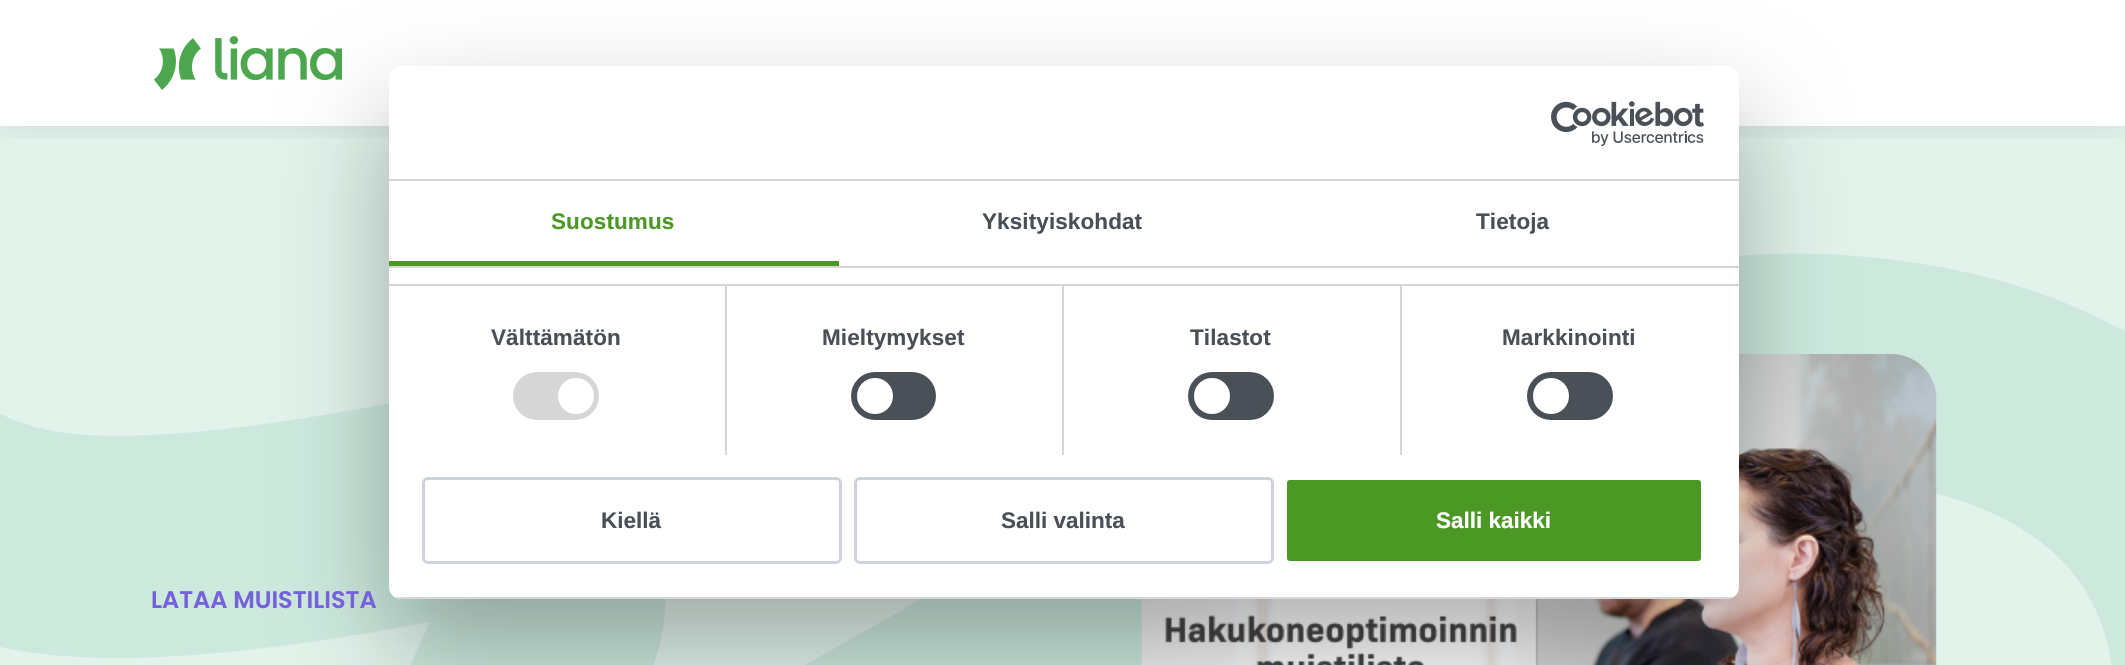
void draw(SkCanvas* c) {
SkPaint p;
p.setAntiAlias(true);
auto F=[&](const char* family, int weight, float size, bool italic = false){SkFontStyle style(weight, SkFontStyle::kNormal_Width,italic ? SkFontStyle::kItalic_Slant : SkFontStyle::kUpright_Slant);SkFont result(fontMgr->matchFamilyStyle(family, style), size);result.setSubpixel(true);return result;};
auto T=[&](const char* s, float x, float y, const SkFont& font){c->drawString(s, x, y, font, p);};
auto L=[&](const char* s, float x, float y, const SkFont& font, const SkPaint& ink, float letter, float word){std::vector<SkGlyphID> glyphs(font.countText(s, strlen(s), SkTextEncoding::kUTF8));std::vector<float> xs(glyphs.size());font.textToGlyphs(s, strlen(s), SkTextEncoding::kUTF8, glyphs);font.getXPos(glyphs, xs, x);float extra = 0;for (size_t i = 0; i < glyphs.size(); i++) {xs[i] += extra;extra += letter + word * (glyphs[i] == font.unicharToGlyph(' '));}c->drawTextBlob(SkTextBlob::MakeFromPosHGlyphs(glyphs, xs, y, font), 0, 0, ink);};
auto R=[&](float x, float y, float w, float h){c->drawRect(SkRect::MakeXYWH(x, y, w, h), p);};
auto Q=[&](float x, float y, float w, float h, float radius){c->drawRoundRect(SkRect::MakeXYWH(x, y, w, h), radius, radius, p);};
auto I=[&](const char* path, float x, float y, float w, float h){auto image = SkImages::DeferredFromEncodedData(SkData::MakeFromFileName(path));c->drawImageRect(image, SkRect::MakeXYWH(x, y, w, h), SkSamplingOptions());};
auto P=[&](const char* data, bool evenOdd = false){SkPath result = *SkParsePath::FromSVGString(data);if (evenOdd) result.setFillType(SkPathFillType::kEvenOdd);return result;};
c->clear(0xffffffff);
I("3.png",0,126,2125,539);
c->save();
c->clipRect(SkRect::MakeXYWH(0,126,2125,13));
p.setColor(0x1a000000);
p.setMaskFilter(SkMaskFilter::MakeBlur(kNormal_SkBlurStyle, 15));
c->drawRect(SkRect::MakeXYWH(0,0,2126,126),p);
p.setMaskFilter(nullptr);
c->restore();
I("2.png",154,36,188,54);
I("4.png",1141,354,796,311);
p.setColor(0x4d000000);
p.setMaskFilter(SkMaskFilter::MakeBlur(kNormal_SkBlurStyle, 51));
c->drawRoundRect(SkRect::MakeXYWH(389,114,1350,533),12,12,p);
p.setMaskFilter(nullptr);
p.setColor(0xffffffff);
Q(389,66,1350,533,12);
p.setColor(0xffd6d6d6);
R(389,179,1350,2);
I("1.png",1551,101,153,45);
R(389,266,1350,2);
p.setColor(0xff4c9825);
R(389,261,450,5);
auto f1 = F("Liberation Sans",700,22.5);
L("Suostumus",551,229,f1,p,.1,0);
p.setColor(0xff495057);
L("Yksityiskohdat",982,229,f1,p,.1,0);
L("Tietoja",1476,229,f1,p,.1,0);
p.setColor(0xffd6d6d6);
R(725,285,2,170);
R(1062,285,2,170);
R(1400,285,2,170);
R(389,284,1350,2);
p.setColor(0xff495057);
L("Välttämätön",491,345,f1,p,.1,0);
p.setColor(0xffd6d6d6);
Q(513,372,86,48,24);
p.setColor(0xffffffff);
c->drawCircle(576,396,18,p);
p.setColor(0xff495057);
L("Mieltymykset",822,345,f1,p,.1,0);
Q(851,372,85,48,24);
p.setColor(0xffffffff);
c->drawCircle(875,396,18,p);
p.setColor(0xff495057);
L("Tilastot",1190,345,f1,p,.1,0);
Q(1188,372,86,48,24);
p.setColor(0xffffffff);
c->drawCircle(1212,396,18,p);
p.setColor(0xff495057);
L("Markkinointi",1502,345,f1,p,.1,0);
Q(1527,372,86,48,24);
p.setColor(0xffffffff);
c->drawCircle(1551,396,18,p);
c->save();
c->clipPath(P("M401 66h1326c6.5 0 12 5.5 12 12v509c0 6.5-5.5 12-12 12h-1326c-6.5 0-12-5.5-12-12v-509c0-6.5 5.5-12 12-12z"),true);
p.setColor(0xffd6d6d6);
R(389,597,1350,2);
c->restore();
p.setStroke(true);
p.setStrokeWidth(3);
p.setColor(0xffced3d9);
c->drawRoundRect(SkRect::MakeXYWH(423.5,478.5,417,84),4.5,4.5,p);
p.setStroke(false);
p.setColor(0xff495057);
T("Kiellä",601,528,f1);
p.setStroke(true);
p.setColor(0xffced3d9);
c->drawRoundRect(SkRect::MakeXYWH(855.5,478.5,417,84),4.5,4.5,p);
p.setStroke(false);
p.setColor(0xff495057);
T("Salli valinta",1001,528,f1);
p.setColor(0xff4c9825);
c->drawRoundRect(SkRect::MakeXYWH(1285.5,478.5,417,84),4.5,4.5,p);
p.setStroke(true);
p.setColor(0xffffffff);
c->drawRoundRect(SkRect::MakeXYWH(1285.5,478.5,417,84),4.5,4.5,p);
p.setStroke(false);
T("Salli kaikki",1436,528,f1);
auto f2 = F("Poppins",600,24);
p.setColor(0xff7561db);
T("LATAA MUISTILISTA",151,608,f2);
}
